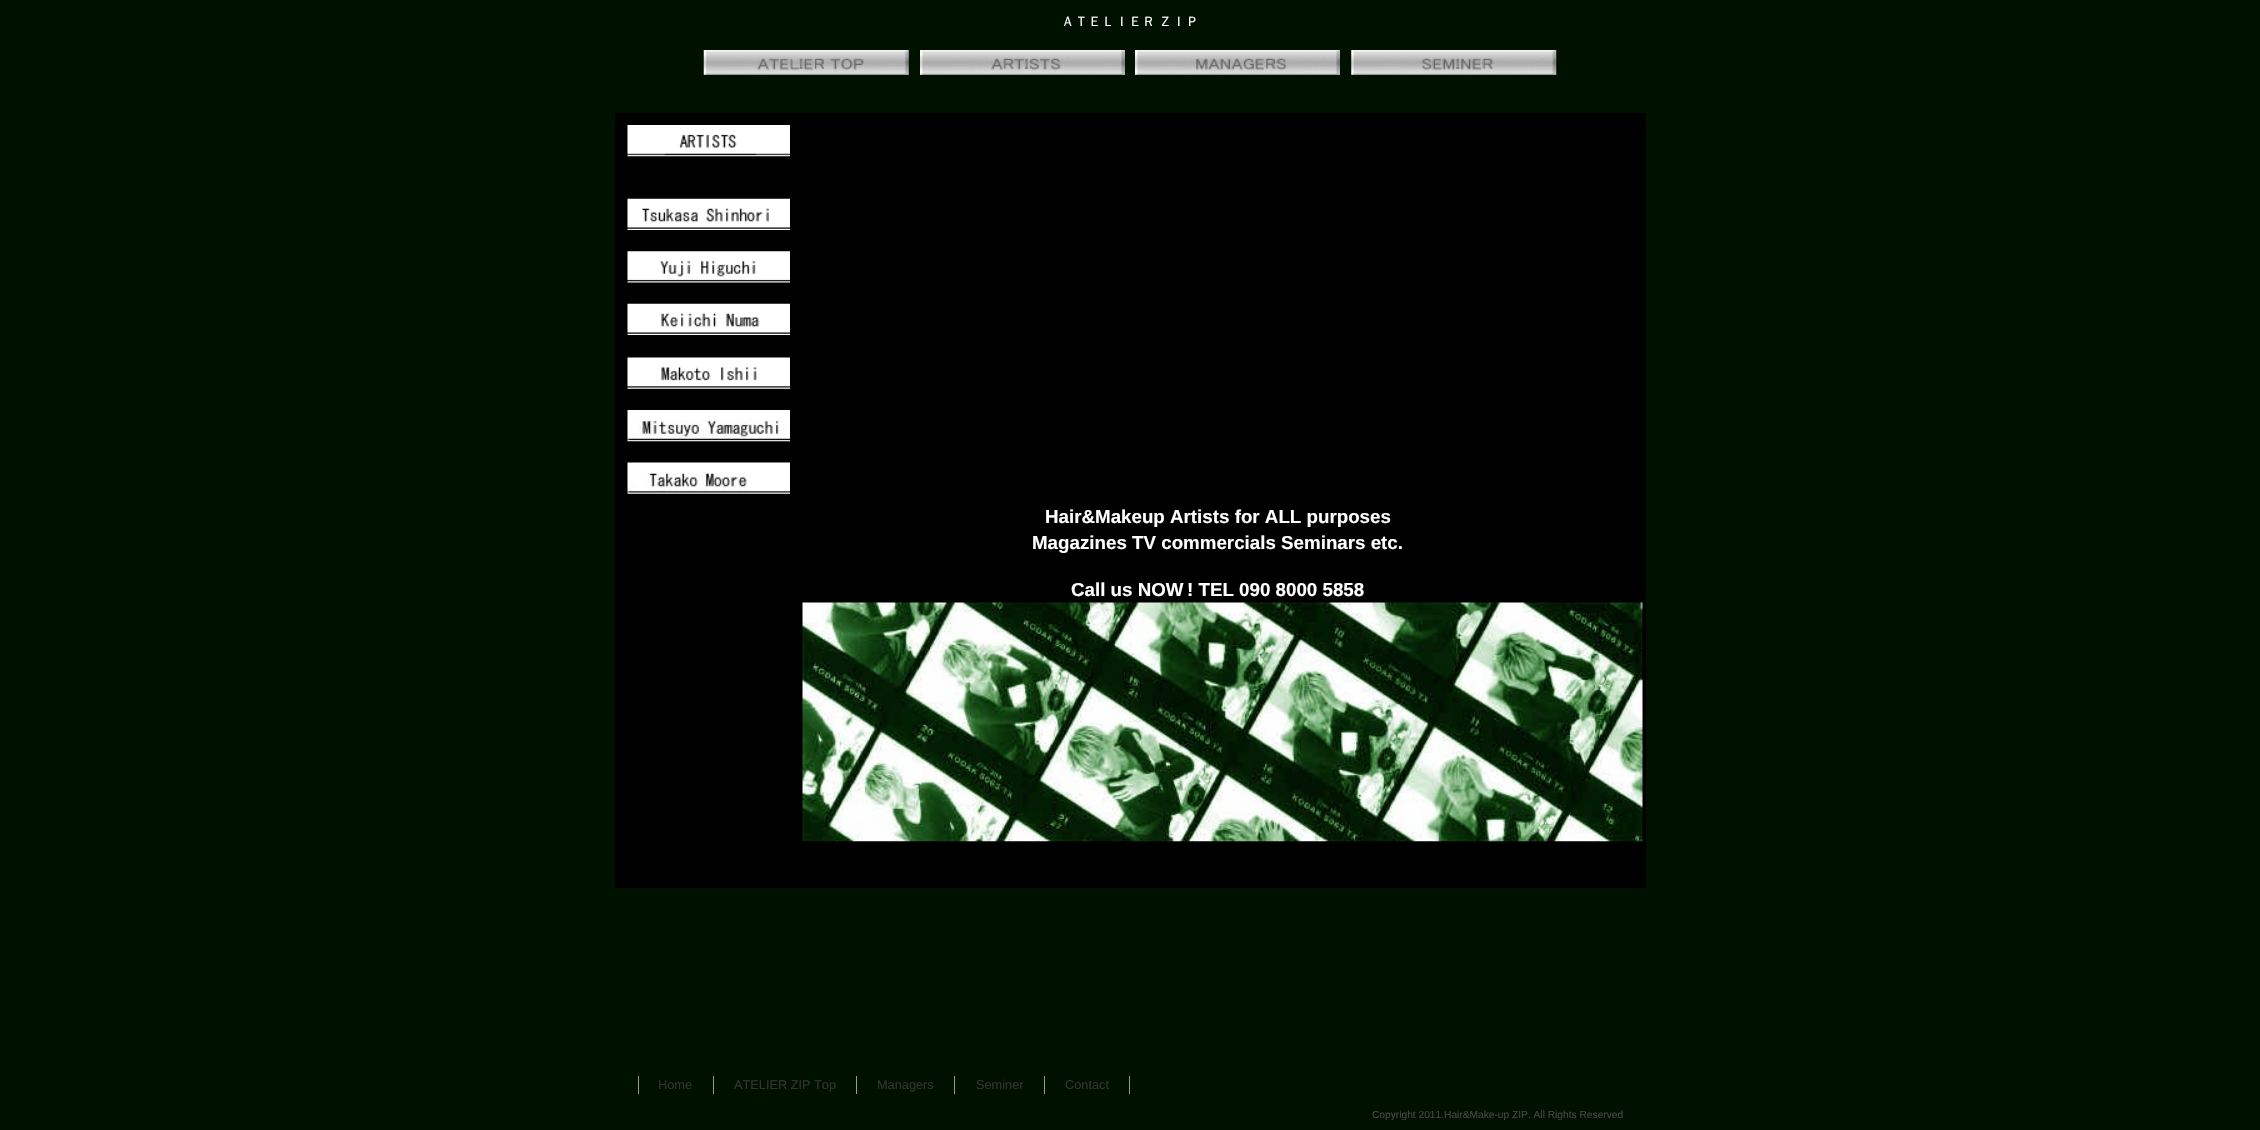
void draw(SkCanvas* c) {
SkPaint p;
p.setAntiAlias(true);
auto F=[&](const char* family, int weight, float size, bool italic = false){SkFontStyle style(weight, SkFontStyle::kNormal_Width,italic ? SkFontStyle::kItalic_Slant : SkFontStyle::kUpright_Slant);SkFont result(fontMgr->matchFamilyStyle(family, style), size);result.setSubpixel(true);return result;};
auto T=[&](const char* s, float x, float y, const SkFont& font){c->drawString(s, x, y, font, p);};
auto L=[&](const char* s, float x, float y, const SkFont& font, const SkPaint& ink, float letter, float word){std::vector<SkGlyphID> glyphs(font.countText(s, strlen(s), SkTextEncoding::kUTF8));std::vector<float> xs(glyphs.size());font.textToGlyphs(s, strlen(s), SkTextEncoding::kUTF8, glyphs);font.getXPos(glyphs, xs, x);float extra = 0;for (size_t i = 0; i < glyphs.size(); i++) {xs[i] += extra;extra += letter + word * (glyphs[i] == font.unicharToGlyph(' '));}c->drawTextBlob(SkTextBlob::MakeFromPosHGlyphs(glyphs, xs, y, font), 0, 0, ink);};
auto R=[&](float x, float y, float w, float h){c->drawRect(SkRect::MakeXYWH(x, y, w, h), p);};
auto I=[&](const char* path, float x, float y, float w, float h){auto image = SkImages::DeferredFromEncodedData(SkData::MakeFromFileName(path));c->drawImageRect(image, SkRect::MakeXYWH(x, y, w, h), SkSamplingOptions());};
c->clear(0xff001100);
auto f1 = F("WenQuanYi Zen Hei",500,13.5);
p.setColor(0xffffffff);
L("ＡＴＥＬＩＥＲ ＺＩＰ",1061,26,f1,p,0,-1);
I("1.png",703,50,206,25);
I("2.png",920,50,205,25);
I("3.png",1135,50,205,25);
I("4.png",1351,50,206,25);
p.setColor(0xff000000);
R(615,113,1031,775);
I("5.png",627,125,163,32);
I("6.png",627,198,163,32);
I("7.png",627,251,163,32);
I("8.png",627,303,163,32);
I("9.png",627,357,163,32);
I("10.png",627,410,163,32);
I("11.png",627,462,163,32);
auto f2 = F("Liberation Sans",700,18.75);
p.setColor(0xffffffff);
T("Hair&Makeup Artists for ALL purposes",1045,523,f2);
T("Magazines TV commercials Seminars etc.",1032,549,f2);
T("Call us NOW",1071,596,f2);
T("! TEL 090 8000 5858",1187,596,f2);
I("12.png",802,602,841,240);
p.setColor(0xff999999);
R(713,1076,1,18);
R(638,1076,1,18);
auto f3 = F("Liberation Sans",400,12.75);
p.setColor(0xff333333);
T("Home",658,1089,f3);
p.setColor(0xff999999);
R(856,1076,1,18);
p.setColor(0xff333333);
T("ATELIER ZIP Top",734,1089,f3);
p.setColor(0xff999999);
R(954,1076,1,18);
p.setColor(0xff333333);
T("Managers",877,1089,f3);
p.setColor(0xff999999);
R(1044,1076,1,18);
p.setColor(0xff333333);
T("Seminer",976,1089,f3);
p.setColor(0xff999999);
R(1129,1076,1,18);
p.setColor(0xff333333);
T("Contact",1065,1089,f3);
auto f4 = F("Liberation Sans",400,10.2);
p.setColor(0xff464646);
T("Copyright 2011.Hair&Make-up ZIP. All Rights Reserved",1372,1118,f4);
}
